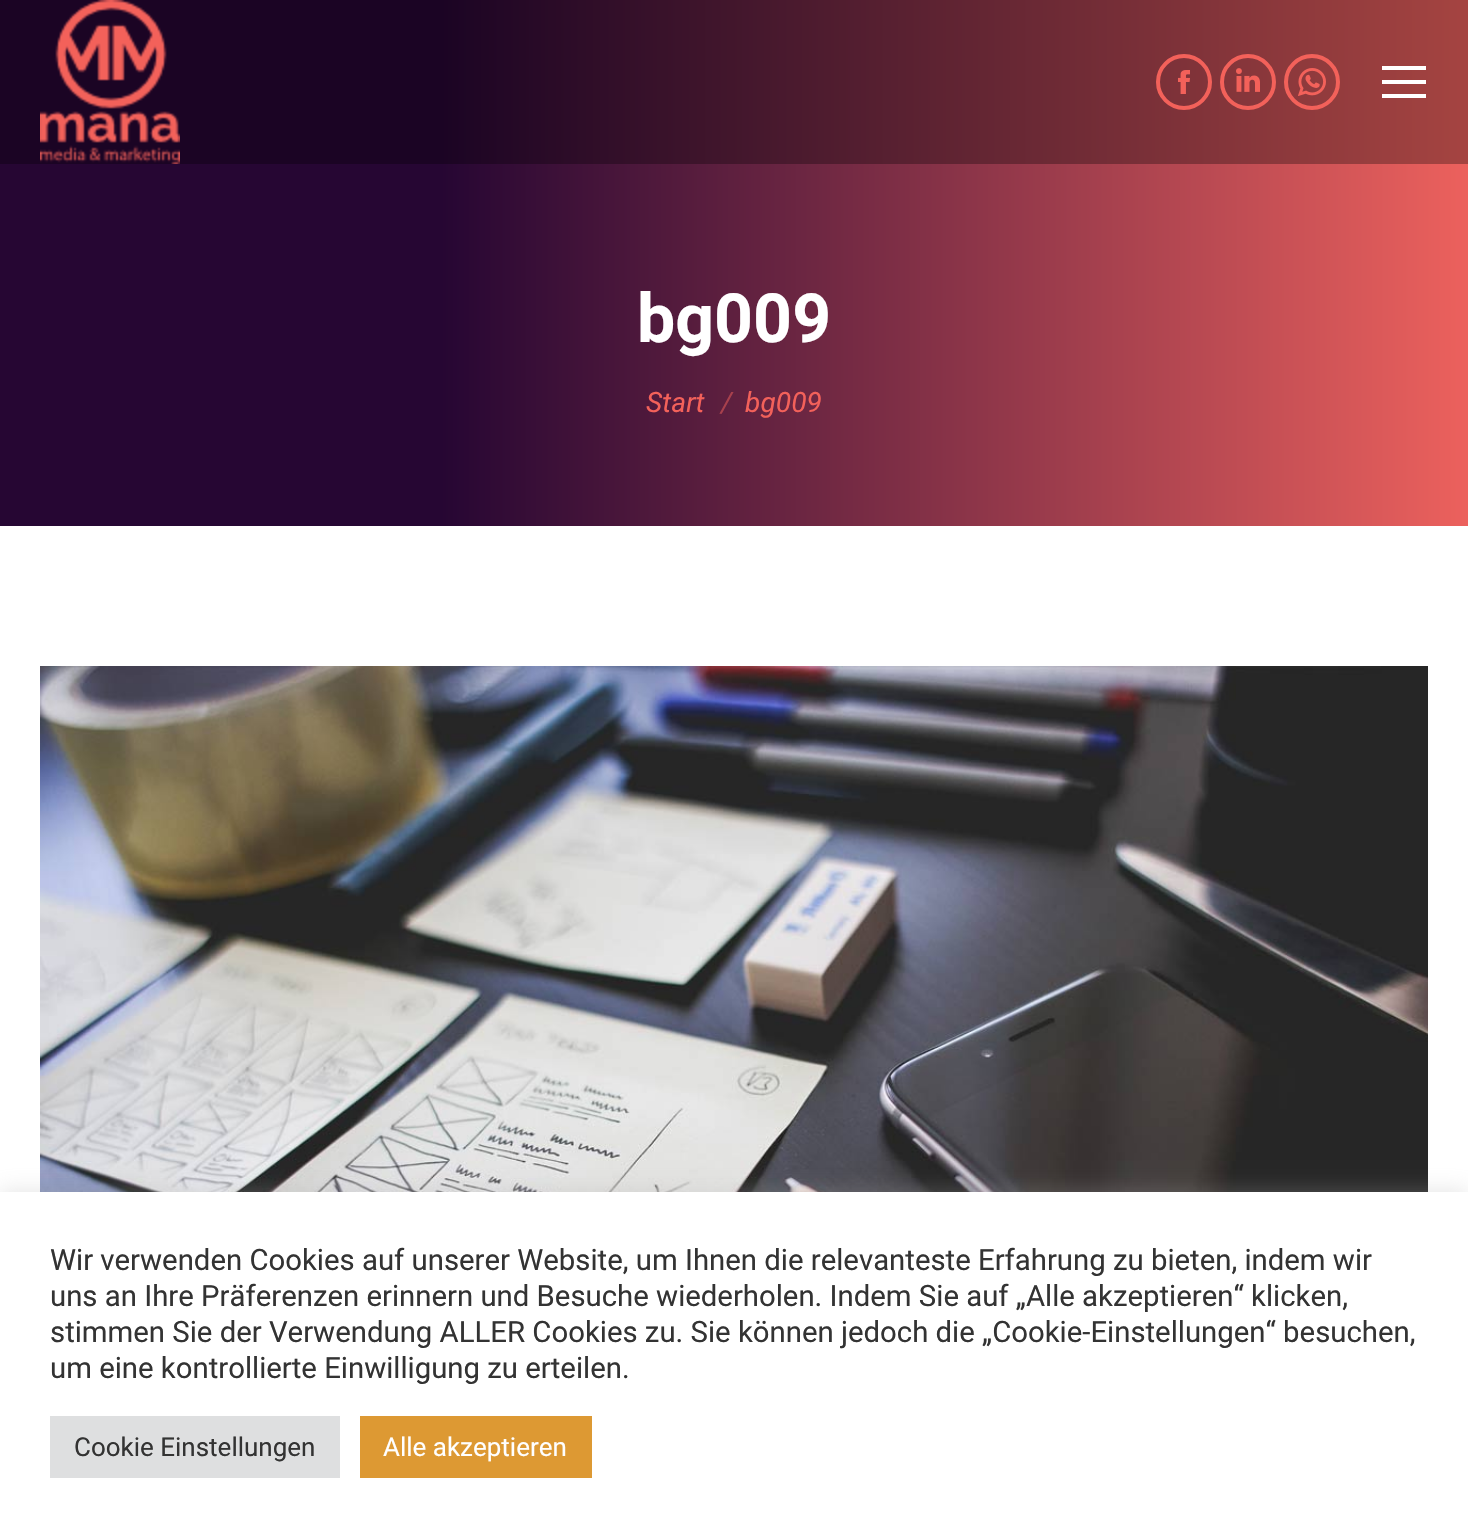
void draw(SkCanvas* c) {
SkPaint p;
p.setAntiAlias(true);
auto F=[&](const char* family, int weight, float size, bool italic = false){SkFontStyle style(weight, SkFontStyle::kNormal_Width,italic ? SkFontStyle::kItalic_Slant : SkFontStyle::kUpright_Slant);SkFont result(fontMgr->matchFamilyStyle(family, style), size);result.setSubpixel(true);return result;};
auto T=[&](const char* s, float x, float y, const SkFont& font){c->drawString(s, x, y, font, p);};
auto R=[&](float x, float y, float w, float h){c->drawRect(SkRect::MakeXYWH(x, y, w, h), p);};
auto I=[&](const char* path, float x, float y, float w, float h){auto image = SkImages::DeferredFromEncodedData(SkData::MakeFromFileName(path));c->drawImageRect(image, SkRect::MakeXYWH(x, y, w, h), SkSamplingOptions());};
c->clear(0xffffffff);
{
const SkColor colors[] = {0xff1b0424,0xffa54441};
const float stops[] = {.3,1};
const SkPoint ends[] = {{0,263}, {1468,263}};
p.setShader(SkGradientShader::MakeLinear(ends, colors, stops, 2, SkTileMode::kClamp));
p.setAlpha(255);
}
R(0,0,1468,164);
I("1.png",40,0,140,164);
p.setStroke(true);
p.setStrokeWidth(4);
p.setShader(nullptr);
p.setColor(0xfff3615a);
c->drawCircle(1184,82,26,p);
I("2.png",1178,70,12,24);
c->drawCircle(1248,82,26,p);
I("3.png",1236,68,24,24);
c->drawCircle(1312,82,26,p);
I("4.png",1298,68,28,28);
p.setStroke(false);
p.setColor(0xffffffff);
R(1382,66,44,4);
R(1382,80,44,4);
R(1382,94,44,4);
{
const SkColor colors[] = {0xff260633,0xffec615d};
const float stops[] = {.3,1};
const SkPoint ends[] = {{0,263}, {1468,263}};
p.setShader(SkGradientShader::MakeLinear(ends, colors, stops, 2, SkTileMode::kClamp));
p.setAlpha(255);
}
R(0,164,1468,362);
auto f1 = F("Roboto",700,68);
p.setShader(nullptr);
p.setColor(0xffffffff);
T("bg009",637,342,f1);
auto f2 = F("Roboto",400,28,true);
p.setColor(0xfff3615a);
T("Start",646,412,f2);
p.setColor(0xffa8404c);
T("/",721,412,f2);
p.setColor(0xfff3615a);
T("bg009",745,412,f2);
I("5.png",40,666,1388,526);
p.setColor(0x4dacabab);
p.setMaskFilter(SkMaskFilter::MakeBlur(kNormal_SkBlurStyle, 10));
c->drawRect(SkRect::MakeXYWH(0,1190,1468,346),p);
p.setMaskFilter(nullptr);
p.setColor(0xffffffff);
R(0,1192,1468,346);
auto f3 = F("Roboto",400,29.35);
p.setColor(0xff333333);
T("Wir verwenden Cookies auf unserer Website, um Ihnen die relevanteste Erfahrung zu bieten, indem wir",50,1270,f3);
T("uns an Ihre Präferenzen erinnern und Besuche wiederholen. Indem Sie auf „Alle akzeptieren“ klicken,",50,1306,f3);
T("stimmen Sie der Verwendung ALLER Cookies zu. Sie können jedoch die „Cookie-Einstellungen“ besuchen,",50,1342,f3);
T("um eine kontrollierte Einwilligung zu erteilen.",50,1378,f3);
p.setColor(0xffdedfe0);
R(50,1416,290,62);
auto f4 = F("Roboto",400,26);
p.setColor(0xff333333);
T("Cookie Einstellungen",74,1456,f4);
p.setColor(0xffdd9933);
R(360,1416,232,62);
p.setColor(0xffffffff);
T("Alle akzeptieren",383,1456,f4);
}
